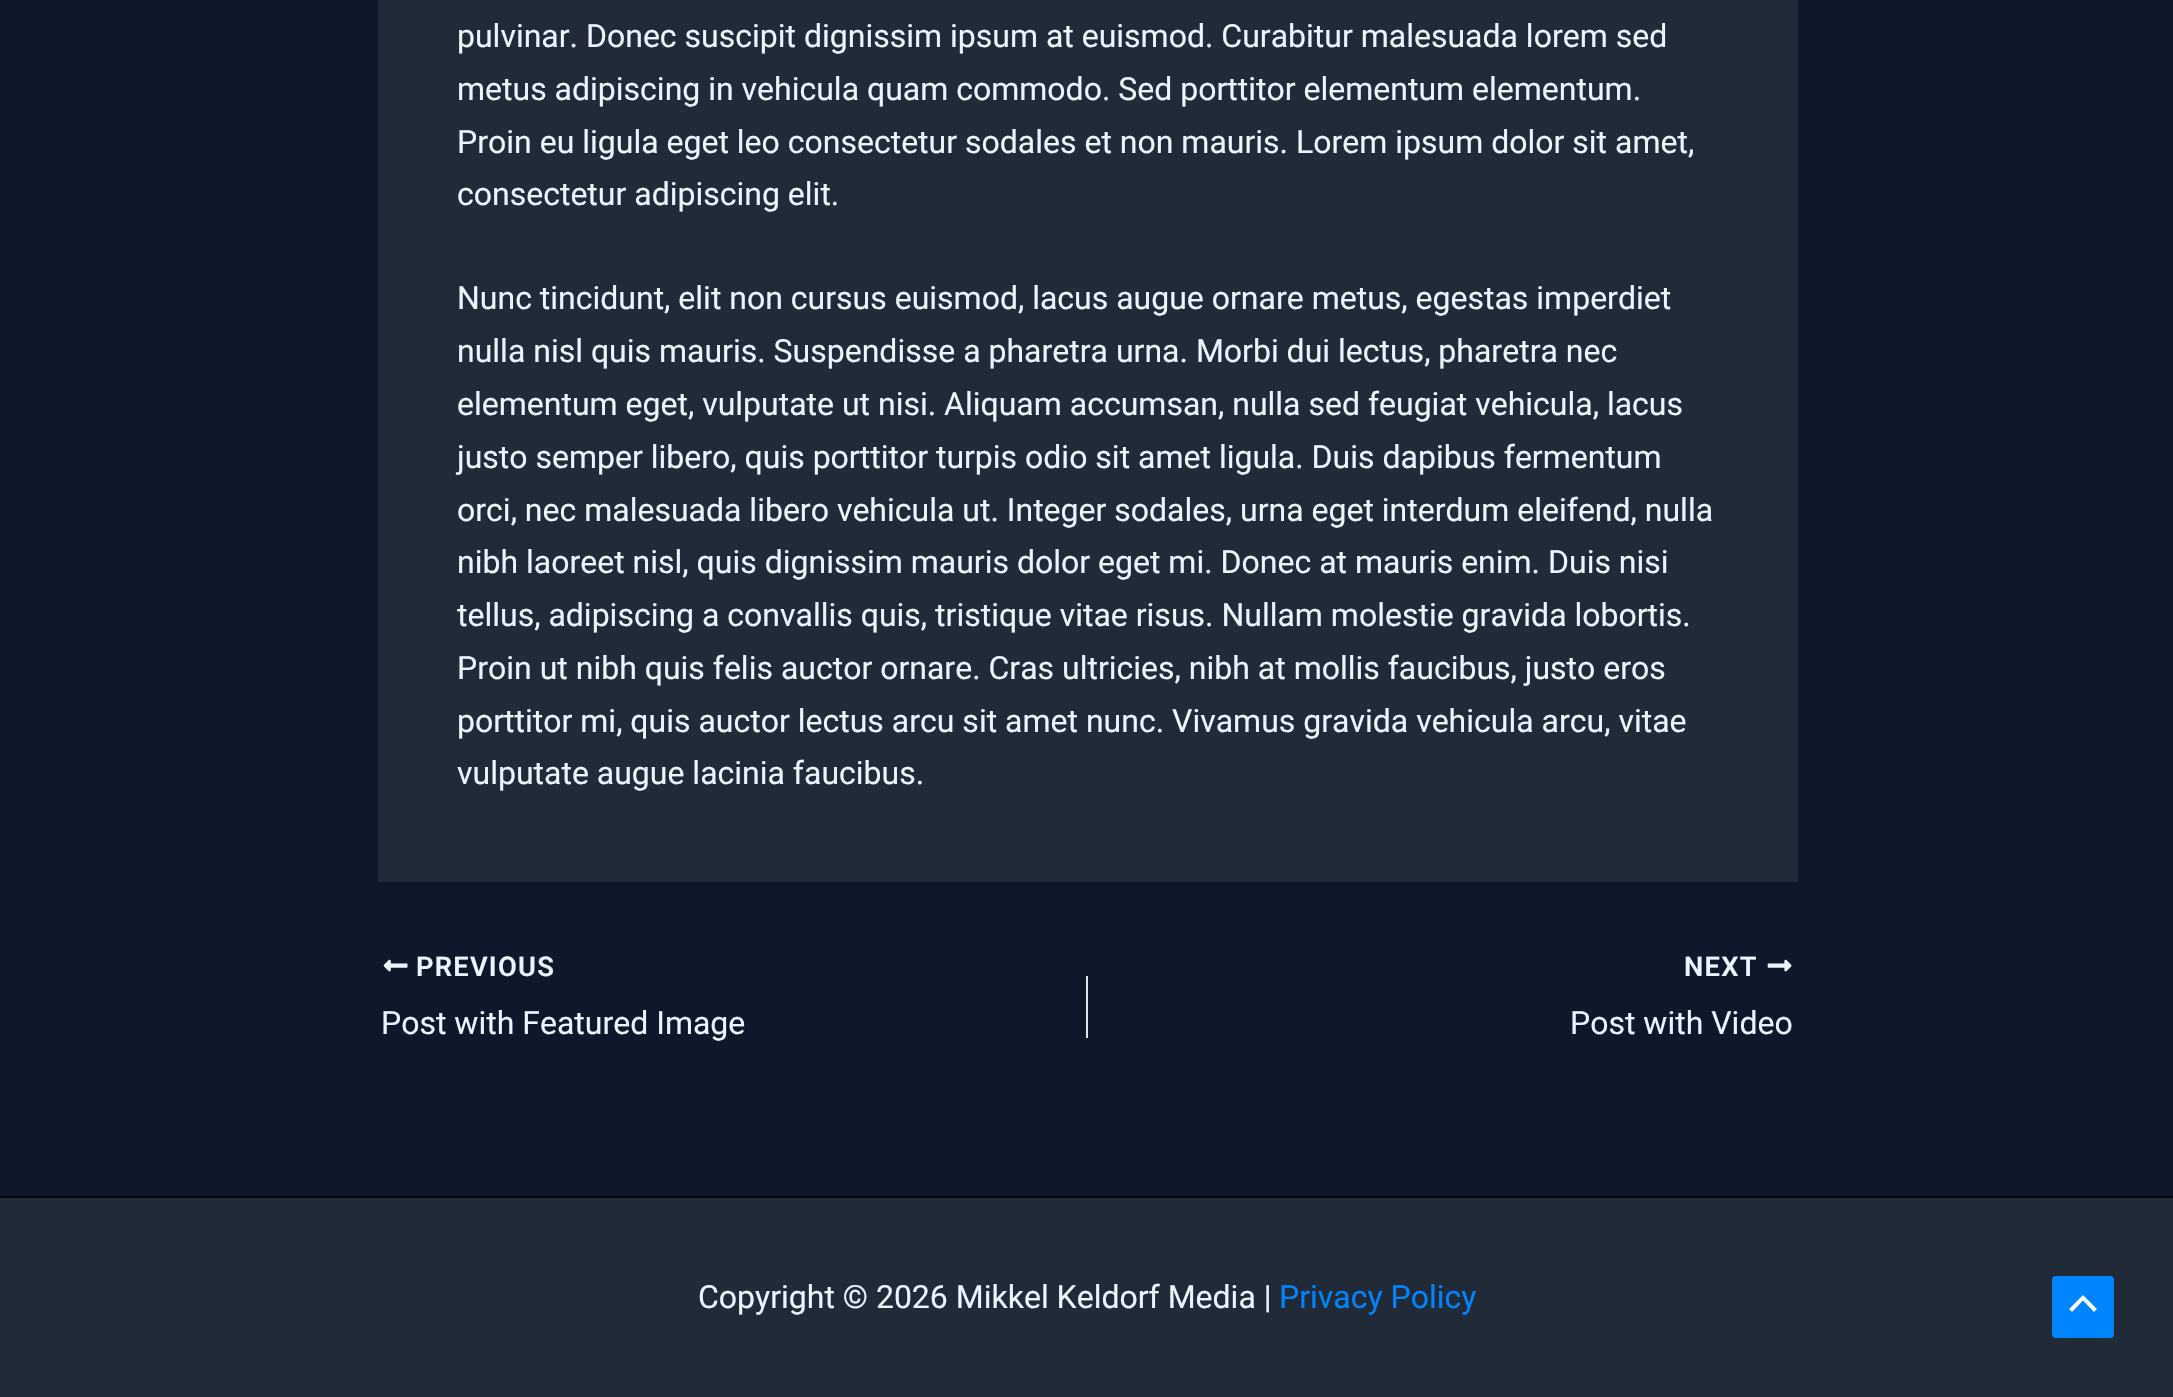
void draw(SkCanvas* c) {
SkPaint p;
p.setAntiAlias(true);
auto F=[&](const char* family, int weight, float size, bool italic = false){SkFontStyle style(weight, SkFontStyle::kNormal_Width,italic ? SkFontStyle::kItalic_Slant : SkFontStyle::kUpright_Slant);SkFont result(fontMgr->matchFamilyStyle(family, style), size);result.setSubpixel(true);return result;};
auto T=[&](const char* s, float x, float y, const SkFont& font){c->drawString(s, x, y, font, p);};
auto L=[&](const char* s, float x, float y, const SkFont& font, const SkPaint& ink, float letter, float word){std::vector<SkGlyphID> glyphs(font.countText(s, strlen(s), SkTextEncoding::kUTF8));std::vector<float> xs(glyphs.size());font.textToGlyphs(s, strlen(s), SkTextEncoding::kUTF8, glyphs);font.getXPos(glyphs, xs, x);float extra = 0;for (size_t i = 0; i < glyphs.size(); i++) {xs[i] += extra;extra += letter + word * (glyphs[i] == font.unicharToGlyph(' '));}c->drawTextBlob(SkTextBlob::MakeFromPosHGlyphs(glyphs, xs, y, font), 0, 0, ink);};
auto R=[&](float x, float y, float w, float h){c->drawRect(SkRect::MakeXYWH(x, y, w, h), p);};
auto Q=[&](float x, float y, float w, float h, float radius){c->drawRoundRect(SkRect::MakeXYWH(x, y, w, h), radius, radius, p);};
auto I=[&](const char* path, float x, float y, float w, float h){auto image = SkImages::DeferredFromEncodedData(SkData::MakeFromFileName(path));c->drawImageRect(image, SkRect::MakeXYWH(x, y, w, h), SkSamplingOptions());};
auto P=[&](const char* data, bool evenOdd = false){SkPath result = *SkParsePath::FromSVGString(data);if (evenOdd) result.setFillType(SkPathFillType::kEvenOdd);return result;};
c->clear(0xff0f172a);
p.setColor(0xff212a37);
R(378,0,1420,882);
auto f1 = F("Roboto",400,32);
p.setColor(0xffe7f6ff);
T("pulvinar. Donec suscipit dignissim ipsum at euismod. Curabitur malesuada lorem sed",457,47,f1);
T("metus adipiscing in vehicula quam commodo. Sed porttitor elementum elementum.",457,100,f1);
T("Proin eu ligula eget leo consectetur sodales et non mauris. Lorem ipsum dolor sit amet,",457,153,f1);
T("consectetur adipiscing elit.",457,205,f1);
T("Nunc tincidunt, elit non cursus euismod, lacus augue ornare metus, egestas imperdiet",457,309,f1);
T("nulla nisl quis mauris. Suspendisse a pharetra urna. Morbi dui lectus, pharetra nec",457,362,f1);
T("elementum eget, vulputate ut nisi. Aliquam accumsan, nulla sed feugiat vehicula, lacus",457,415,f1);
T("justo semper libero, quis porttitor turpis odio sit amet ligula. Duis dapibus fermentum",457,468,f1);
T("orci, nec malesuada libero vehicula ut. Integer sodales, urna eget interdum eleifend, nulla",457,521,f1);
T("nibh laoreet nisl, quis dignissim mauris dolor eget mi. Donec at mauris enim. Duis nisi",457,573,f1);
T("tellus, adipiscing a convallis quis, tristique vitae risus. Nullam molestie gravida lobortis.",457,626,f1);
T("Proin ut nibh quis felis auctor ornare. Cras ultricies, nibh at mollis faucibus, justo eros",457,679,f1);
T("porttitor mi, quis auctor lectus arcu sit amet nunc. Vivamus gravida vehicula arcu, vitae",457,732,f1);
T("vulputate augue lacinia faucibus.",457,784,f1);
I("1.png",383,959,25,13);
auto f2 = F("Roboto",600,27.25);
L("PREVIOUS",416,976,f2,p,1.25,0);
T("Post with Featured Image",381,1034,f1);
p.setColor(0xffe1e8ed);
R(1086,976,2,62);
p.setColor(0xffe7f6ff);
L("NEXT",1684,976,f2,p,1.25,0);
I("2.png",1767,959,25,13);
T("Post with Video",1570,1034,f1);
p.setColor(0xff212a37);
R(0,1198,2173,199);
p.setColor(0xff070614);
R(0,1196,2173,2);
p.setColor(0xffe7f6ff);
T("Copyright © 2026 Mikkel Keldorf Media |",698,1308,f1);
p.setColor(0xff0085ff);
T("Privacy Policy",1279,1308,f1);
Q(2052,1276,62,62,4);
p.setColor(0xffffffff);
c->drawPath(P("M2097 1309l-14-14l-14 14l3 3l11-11.5l11 11.5z"),p);
}
